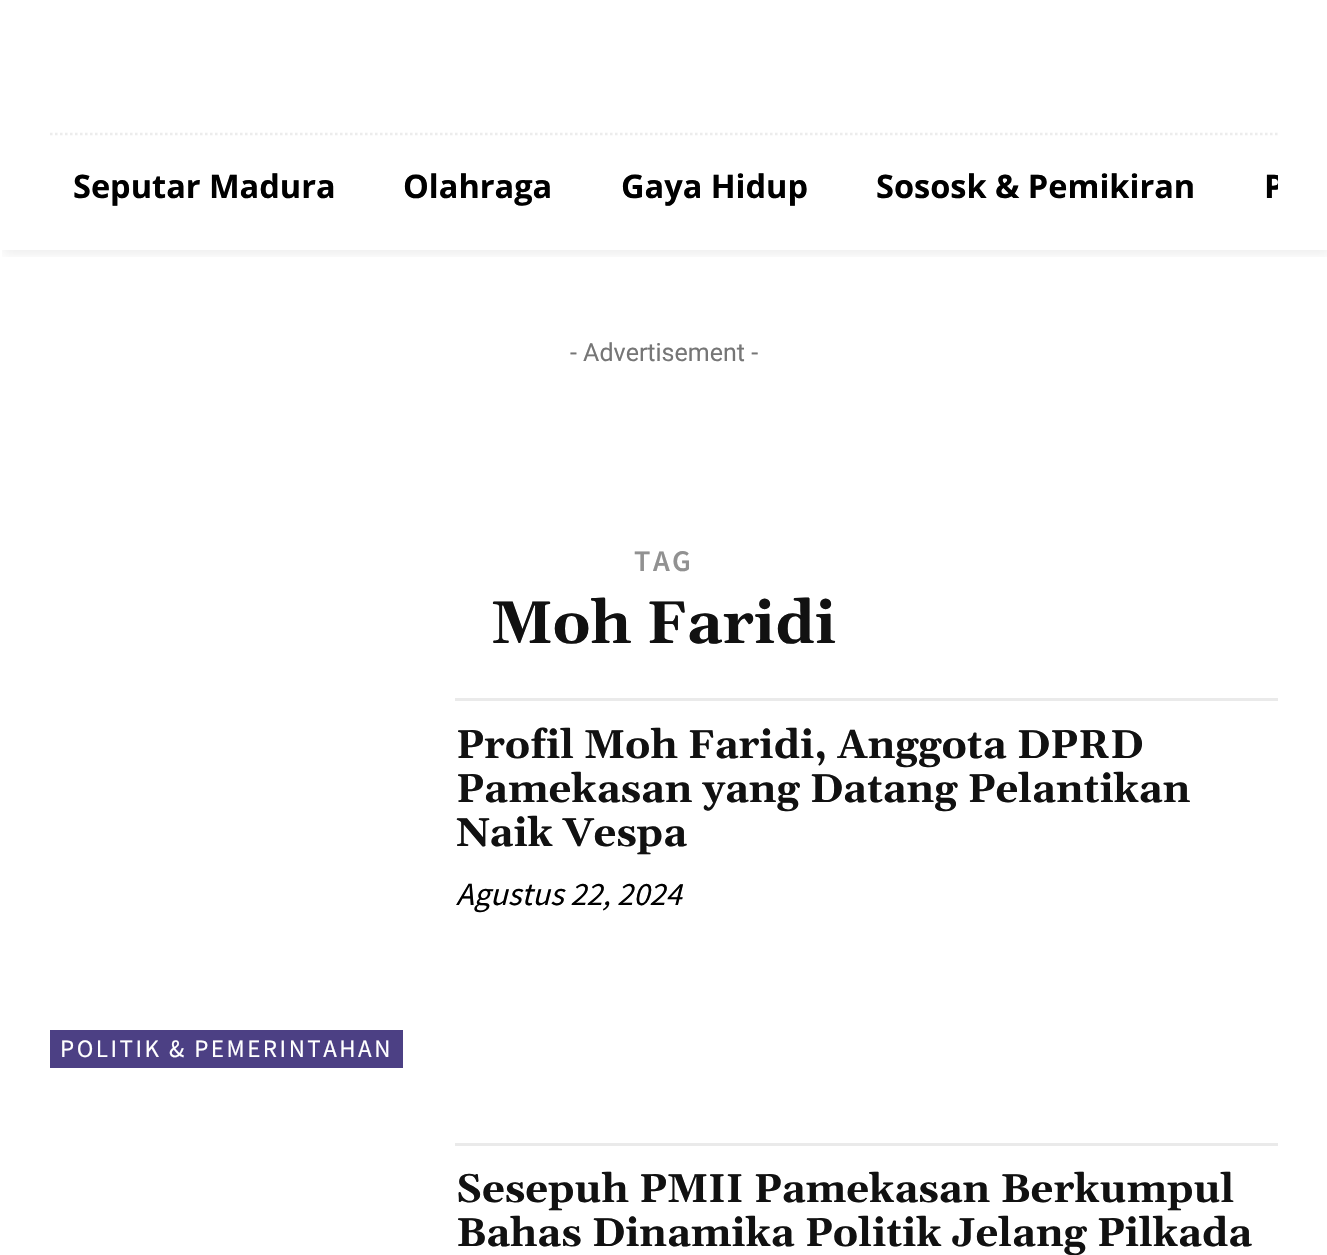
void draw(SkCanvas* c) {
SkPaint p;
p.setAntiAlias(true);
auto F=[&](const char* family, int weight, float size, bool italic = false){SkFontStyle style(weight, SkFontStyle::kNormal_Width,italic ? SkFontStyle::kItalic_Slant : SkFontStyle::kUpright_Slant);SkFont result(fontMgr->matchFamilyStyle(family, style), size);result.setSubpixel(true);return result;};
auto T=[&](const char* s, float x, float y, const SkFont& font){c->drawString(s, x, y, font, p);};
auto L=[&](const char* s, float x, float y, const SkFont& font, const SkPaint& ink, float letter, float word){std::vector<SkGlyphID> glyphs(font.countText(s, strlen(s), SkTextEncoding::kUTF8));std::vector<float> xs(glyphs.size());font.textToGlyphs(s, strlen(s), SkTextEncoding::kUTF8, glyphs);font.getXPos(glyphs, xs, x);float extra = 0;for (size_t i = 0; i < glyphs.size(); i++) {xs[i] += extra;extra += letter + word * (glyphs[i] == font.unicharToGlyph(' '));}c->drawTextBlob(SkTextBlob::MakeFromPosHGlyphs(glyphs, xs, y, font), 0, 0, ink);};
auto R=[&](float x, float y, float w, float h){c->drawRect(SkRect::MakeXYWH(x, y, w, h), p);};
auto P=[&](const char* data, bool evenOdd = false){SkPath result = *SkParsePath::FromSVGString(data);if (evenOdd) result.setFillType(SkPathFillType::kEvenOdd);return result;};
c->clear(0xffffffff);
c->save();
c->clipRect(SkRect::MakeXYWH(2,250,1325,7));
p.setColor(0x0f000000);
p.setMaskFilter(SkMaskFilter::MakeBlur(kNormal_SkBlurStyle, 5));
c->drawRect(SkRect::MakeXYWH(3,5,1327,250),p);
p.setMaskFilter(nullptr);
c->restore();
p.setStroke(true);
p.setStrokeWidth(2.5);
p.setColor(0xffececec);
p.setPathEffect(SkDashPathEffect::Make({{2.5f,2.5f}}, 0));
c->drawPath(P("M50 134h1227.5"),p);
p.setPathEffect(nullptr);
auto f1 = F("Open Sans",700,32.5);
p.setStroke(false);
p.setColor(0xff000000);
T("Seputar Madura",73,198,f1);
T("Olahraga",403,198,f1);
T("Gaya Hidup",621,198,f1);
T("Sososk & Pemikiran",876,198,f1);
c->save();
c->clipRect(SkRect::MakeXYWH(50,135,1228,103));
T("P",1264,198,f1);
c->restore();
auto f2 = F("Roboto",400,25);
p.setColor(0xff767676);
T("- Advertisement -",570,361,f2);
auto f3 = F("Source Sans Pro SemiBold",600,30);
p.setColor(0xff919191);
L("TAG",634,571,f3,p,2.5,0);
auto f4 = F("Gelasio",700,60);
p.setColor(0xff111111);
T("Moh Faridi",491,643,f4);
p.setColor(0xffeaeaea);
R(455,698,823,3);
auto f5 = F("Gelasio",700,40);
p.setColor(0xff111111);
T("Profil Moh Faridi, Anggota DPRD",456,758,f5);
T("Pamekasan yang Datang Pelantikan",456,802,f5);
T("Naik Vespa",456,846,f5);
auto f6 = F("Source Sans Pro",400,32.5,true);
p.setColor(0xff000000);
T("Agustus 22, 2024",456,905,f6);
p.setColor(0xff4c4084);
R(50,1030,353,38);
auto f7 = F("Source Sans Pro",400,25);
p.setColor(0xffffffff);
L("POLITIK & PEMERINTAHAN",60,1057,f7,p,2.5,0);
p.setColor(0xffeaeaea);
R(455,1143,823,3);
p.setColor(0xff111111);
T("Sesepuh PMII Pamekasan Berkumpul",456,1202,f5);
T("Bahas Dinamika Politik Jelang Pilkada",456,1246,f5);
}
